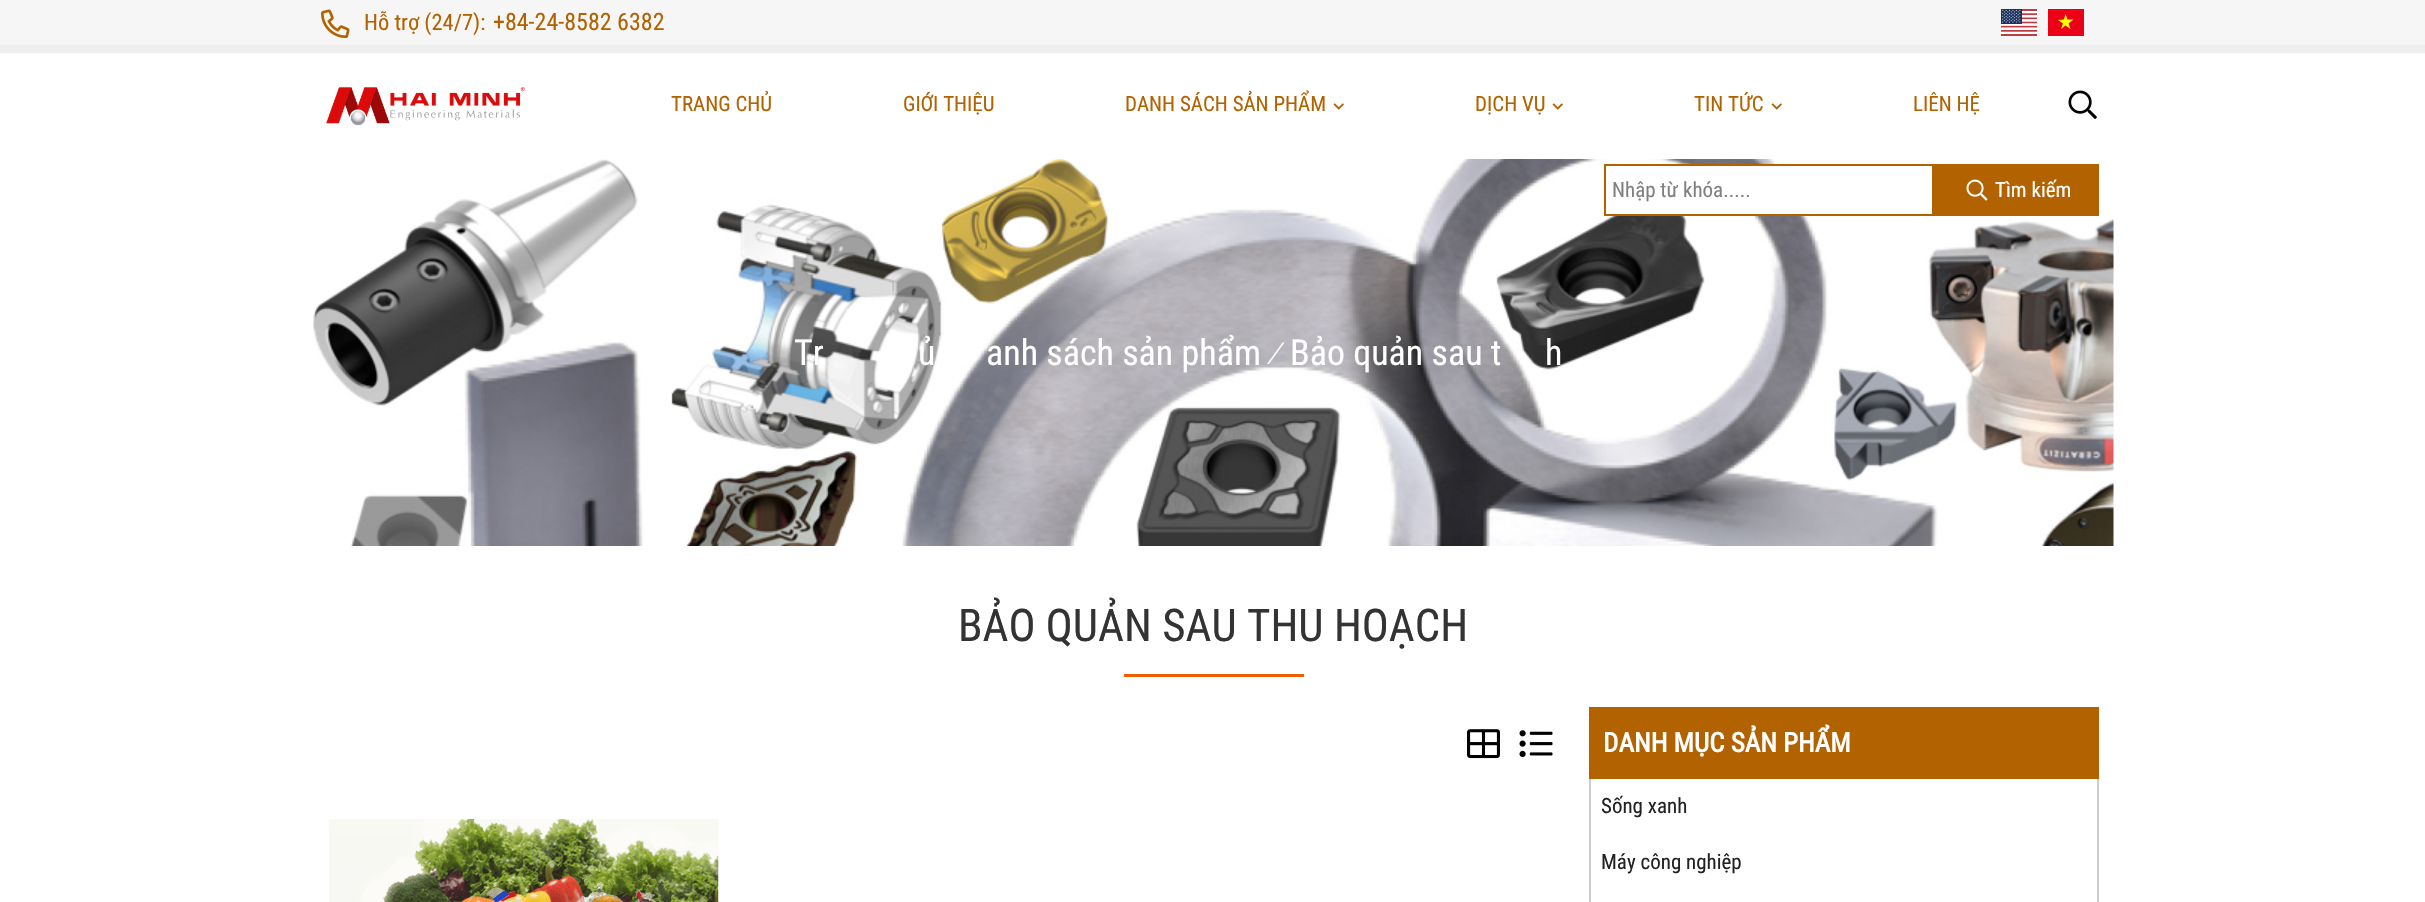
void draw(SkCanvas* c) {
SkPaint p;
p.setAntiAlias(true);
auto F=[&](const char* family, int weight, float size, bool italic = false){SkFontStyle style(weight, SkFontStyle::kNormal_Width,italic ? SkFontStyle::kItalic_Slant : SkFontStyle::kUpright_Slant);SkFont result(fontMgr->matchFamilyStyle(family, style), size);result.setSubpixel(true);return result;};
auto T=[&](const char* s, float x, float y, const SkFont& font){c->drawString(s, x, y, font, p);};
auto R=[&](float x, float y, float w, float h){c->drawRect(SkRect::MakeXYWH(x, y, w, h), p);};
auto I=[&](const char* path, float x, float y, float w, float h){auto image = SkImages::DeferredFromEncodedData(SkData::MakeFromFileName(path));c->drawImageRect(image, SkRect::MakeXYWH(x, y, w, h), SkSamplingOptions());};
auto P=[&](const char* data, bool evenOdd = false){SkPath result = *SkParsePath::FromSVGString(data);if (evenOdd) result.setFillType(SkPathFillType::kEvenOdd);return result;};
c->clear(0xffffffff);
p.setColor(0xfff6f6f6);
R(0,0,2425,45);
p.setColor(0xffeeeeee);
R(0,45,2425,8);
I("1.png",321,9,29,29);
auto f1 = F("Roboto Condensed",400,22.5);
p.setColor(0xffb36200);
T("Hỗ trợ (24/7):",364,30,f1);
auto f2 = F("Roboto Condensed",400,24);
T("+84-24-8582 6382",493,30,f2);
I("2.png",2001,9,36,27);
p.setColor(0xffec0015);
R(2048,9,36,27);
p.setColor(0xffffff00);
c->drawPath(P("M2070.5 29l-5-3.5l-4.5 3.5l2-5.5l-5-3.5l6-.5l1.5-5.5l2 5.5h6l-5 4z",true),p);
I("3.png",326,87,199,39);
auto f3 = F("Roboto Condensed",400,21);
p.setColor(0xffb36200);
T("TRANG CHỦ",671,111,f3);
T("GIỚI THIỆU",903,111,f3);
T("DANH SÁCH SẢN PHẨM",1125,111,f3);
I("4.png",1333,103,11,7);
T("DỊCH VỤ",1475,111,f3);
I("4.png",1552,103,11,7);
T("TIN TỨC",1694,111,f3);
I("4.png",1771,103,11,7);
T("LIÊN HỆ",1913,111,f3);
I("5.png",2068,90,29,29);
I("7.png",313,159,1801,387);
p.setColor(0xffffffff);
R(1615,166,190,48);
p.setStroke(true);
p.setStrokeWidth(2);
p.setColor(0xffb36200);
c->drawRect(SkRect::MakeXYWH(1605,165,328,50),p);
p.setStroke(false);
p.setColor(0xff808080);
T("Nhập từ khóa.....",1612,197,f3);
p.setColor(0xffb36200);
R(1934,164,165,52);
I("6.png",1966,179,22,22);
p.setColor(0xffffffff);
T("Tìm kiếm",1995,197,f3);
auto f4 = F("Roboto Condensed",400,36);
T("Tr",794,365,f4);
T("ủ",918,365,f4);
T("anh sách sản phẩm",986,365,f4);
auto f5 = F("Liberation Serif",400,33,true);
T("∕",1273,364,f5);
T("Bảo quản sau t",1290,365,f4);
T("h",1545,365,f4);
auto f6 = F("Roboto Condensed",400,45);
p.setColor(0xff333333);
T("BẢO QUẢN SAU THU HOẠCH",958,641,f6);
p.setColor(0xffee5e00);
R(1124,674,180,3);
I("8.png",1467,729,33,30);
I("9.png",1519,730,34,27);
I("10.png",329,819,390,83);
p.setColor(0xffb36200);
R(1589,707,510,72);
auto f7 = F("Roboto Condensed",700,27);
p.setColor(0xffffffff);
T("DANH MỤC SẢN PHẨM",1603,752,f7);
p.setColor(0xffcccccc);
R(2097,779,2,123);
R(1589,779,2,123);
p.setColor(0xff222222);
T("Sống xanh",1601,813,f3);
T("Máy công nghiệp",1601,869,f3);
}
